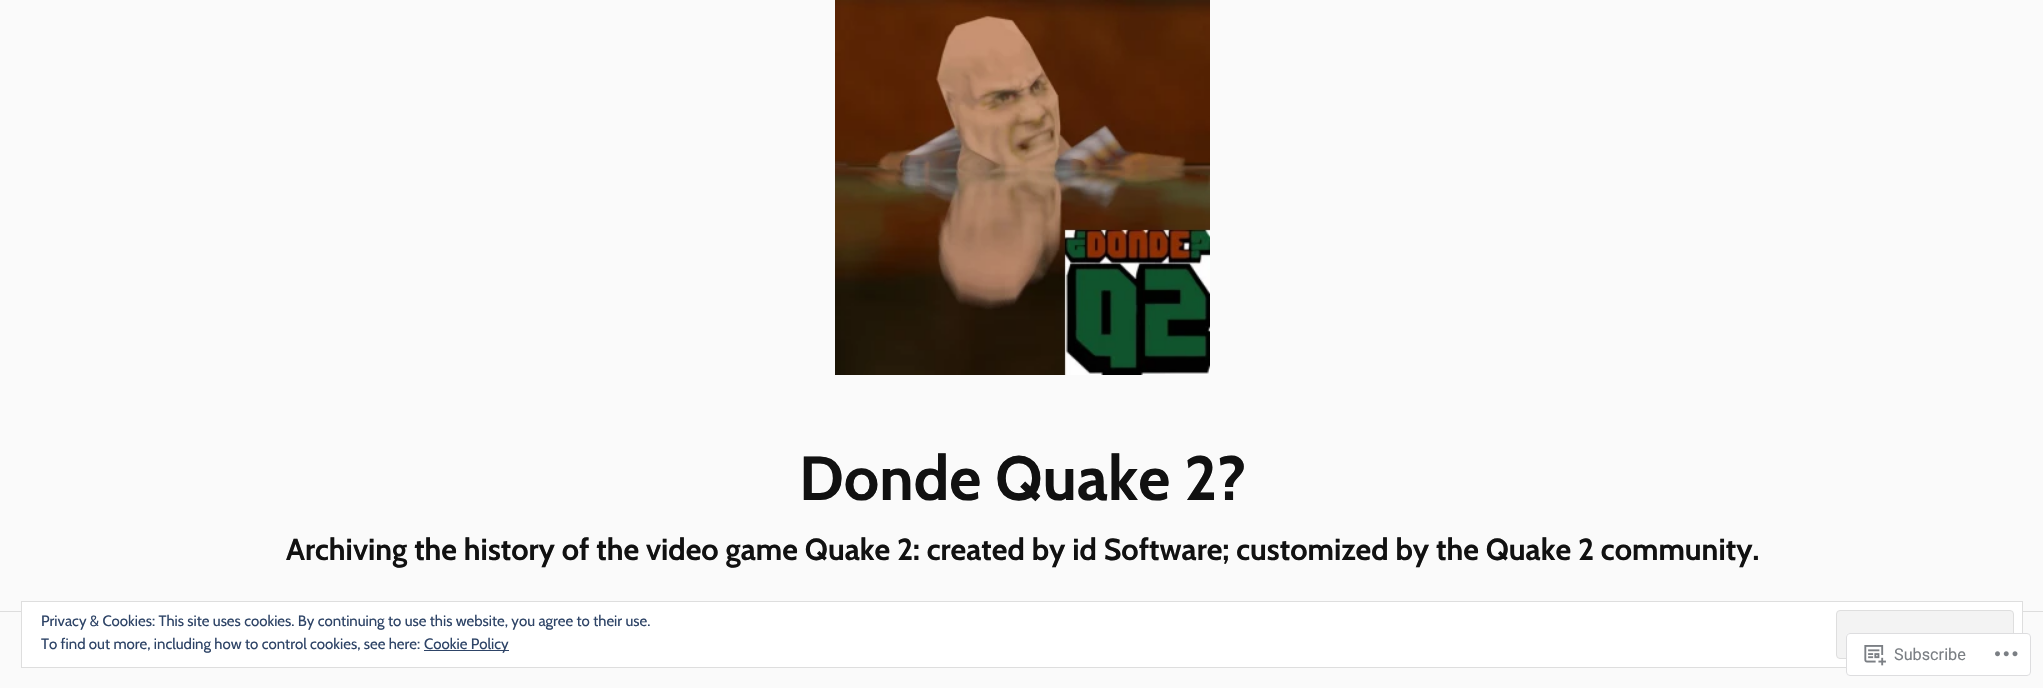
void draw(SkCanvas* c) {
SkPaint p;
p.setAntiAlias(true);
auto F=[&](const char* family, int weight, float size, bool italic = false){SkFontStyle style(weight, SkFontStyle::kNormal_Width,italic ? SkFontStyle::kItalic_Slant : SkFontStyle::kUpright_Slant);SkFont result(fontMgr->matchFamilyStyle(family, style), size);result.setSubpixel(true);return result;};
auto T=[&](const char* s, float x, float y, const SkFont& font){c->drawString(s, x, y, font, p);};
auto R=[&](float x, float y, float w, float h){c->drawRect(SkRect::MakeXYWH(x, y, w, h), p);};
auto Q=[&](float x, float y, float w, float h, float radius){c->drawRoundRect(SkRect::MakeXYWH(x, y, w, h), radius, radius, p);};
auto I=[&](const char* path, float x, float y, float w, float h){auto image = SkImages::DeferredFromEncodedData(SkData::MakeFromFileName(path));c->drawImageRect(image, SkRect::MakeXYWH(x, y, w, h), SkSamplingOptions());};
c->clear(0xfffafafa);
I("1.png",835,0,375,375);
auto f1 = F("Cabin",700,62.25);
p.setColor(0xff111111);
T("Donde Quake 2?",799,500,f1);
auto f2 = F("Cabin",700,30.4);
T("Archiving the history of the video game Quake 2: created by id Software; customized by the Quake 2 community.",286,560,f2);
p.setColor(0xffdddddd);
R(0,611,2043,1);
p.setColor(0xffffffff);
c->drawRect(SkRect::MakeXYWH(21.5,601.5,2001,66),p);
p.setStroke(true);
p.setStrokeWidth(1);
p.setColor(0xffdedede);
c->drawRect(SkRect::MakeXYWH(21.5,601.5,2001,66),p);
auto f3 = F("Cabin",400,15);
p.setStroke(false);
p.setColor(0xff2e4467);
T("Privacy & Cookies: This site uses cookies. By continuing to use this website, you agree to their use.",41,626,f3);
p.setColor(0xfff3f3f3);
c->drawRoundRect(SkRect::MakeXYWH(1836.5,610.5,177,48),3.5,3.5,p);
p.setStroke(true);
p.setColor(0xffdedede);
c->drawRoundRect(SkRect::MakeXYWH(1836.5,610.5,177,48),3.5,3.5,p);
p.setStroke(false);
p.setColor(0xff2e4467);
T("To find out more, including how to control cookies, see here:",41,649,f3);
R(424,650,85,1);
T("Cookie Policy",424,649,f3);
p.setColor(0xfaffffff);
Q(1846,633,185,43,4);
p.setStroke(true);
p.setColor(0xfadcdcde);
c->drawRoundRect(SkRect::MakeXYWH(1846.5,633.5,184,42),3.5,3.5,p);
I("2.png",1864,645,22,21);
auto f4 = F("Roboto",400,16.25);
p.setStroke(false);
p.setColor(0xff7b7f84);
T("Subscribe",1894,660,f4);
I("3.png",1995,651,23,6);
}
